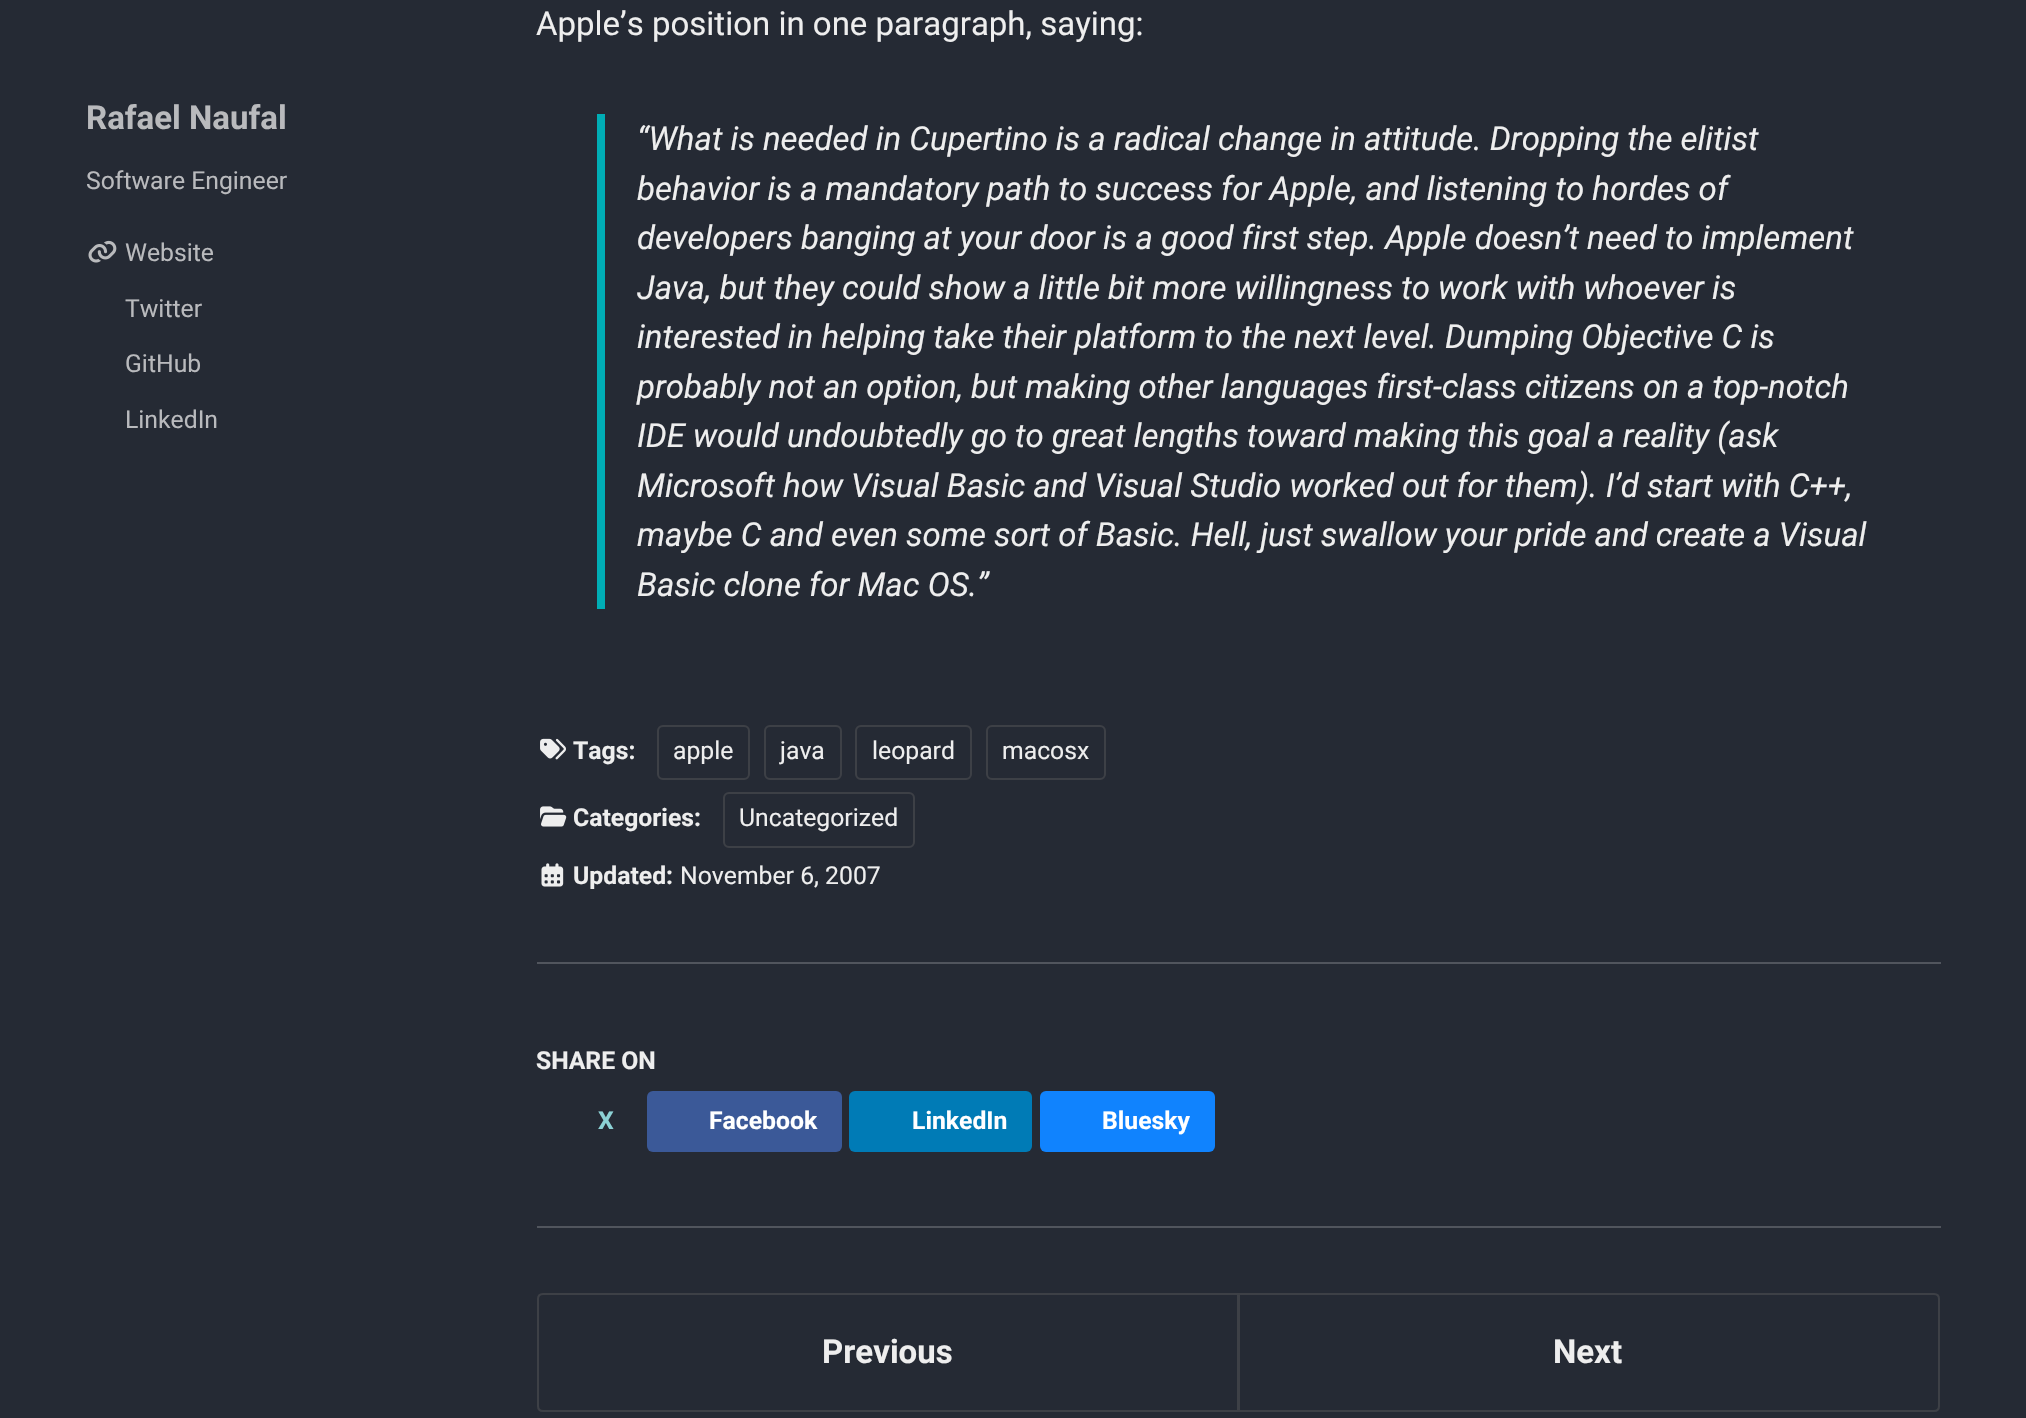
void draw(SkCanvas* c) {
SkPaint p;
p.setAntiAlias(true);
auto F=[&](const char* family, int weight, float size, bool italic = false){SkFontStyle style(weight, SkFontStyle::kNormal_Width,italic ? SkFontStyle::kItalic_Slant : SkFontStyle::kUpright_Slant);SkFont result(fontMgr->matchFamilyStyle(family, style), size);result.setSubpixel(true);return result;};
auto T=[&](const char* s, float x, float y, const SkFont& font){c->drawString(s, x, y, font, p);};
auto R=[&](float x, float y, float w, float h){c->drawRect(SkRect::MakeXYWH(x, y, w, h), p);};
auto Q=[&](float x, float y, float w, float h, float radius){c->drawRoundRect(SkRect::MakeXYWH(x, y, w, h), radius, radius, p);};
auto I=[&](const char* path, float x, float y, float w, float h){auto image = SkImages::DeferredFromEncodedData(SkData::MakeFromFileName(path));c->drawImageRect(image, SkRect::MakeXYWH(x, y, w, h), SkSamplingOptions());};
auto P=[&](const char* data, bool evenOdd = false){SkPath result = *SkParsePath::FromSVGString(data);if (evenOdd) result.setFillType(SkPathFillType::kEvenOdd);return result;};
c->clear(0xff252a34);
auto f1 = F("Roboto",700,33);
p.setColor(0xffb9babd);
T("Rafael Naufal",86,129,f1);
auto f2 = F("Roboto",400,24.75);
T("Software Engineer",86,189,f2);
I("1.png",88,240,29,23);
T("Website",125,261,f2);
T("Twitter",125,317,f2);
T("GitHub",125,372,f2);
T("LinkedIn",125,428,f2);
auto f3 = F("Roboto",400,33);
p.setColor(0xffeeeeee);
T("Apple’s position in one paragraph, saying:",536,35,f3);
p.setColor(0xff00adb5);
R(597,114,8,495);
auto f4 = F("Roboto",400,33,true);
p.setColor(0xffeeeeee);
T("“What is needed in Cupertino is a radical change in attitude. Dropping the elitist",637,150,f4);
T("behavior is a mandatory path to success for Apple, and listening to hordes of",637,200,f4);
T("developers banging at your door is a good first step. Apple doesn’t need to implement",637,249,f4);
T("Java, but they could show a little bit more willingness to work with whoever is",637,299,f4);
T("interested in helping take their platform to the next level. Dumping Objective C is",637,348,f4);
T("probably not an option, but making other languages first-class citizens on a top-notch",637,398,f4);
T("IDE would undoubtedly go to great lengths toward making this goal a reality (ask",637,447,f4);
T("Microsoft how Visual Basic and Visual Studio worked out for them). I’d start with C++,",637,497,f4);
T("maybe C and even some sort of Basic. Hell, just swallow your pride and create a Visual",637,546,f4);
T("Basic clone for Mac OS.”",637,596,f4);
I("2.png",540,738,26,22);
auto f5 = F("Roboto",700,24.75);
T("Tags:",573,759,f5);
p.setStroke(true);
p.setStrokeWidth(2);
p.setColor(0xff3d4046);
c->drawRoundRect(SkRect::MakeXYWH(658,726,91,53),5,5,p);
p.setStroke(false);
p.setColor(0xffeeeeee);
T("apple",673,759,f2);
p.setStroke(true);
p.setColor(0xff3d4046);
c->drawRoundRect(SkRect::MakeXYWH(765,726,76,53),5,5,p);
p.setStroke(false);
p.setColor(0xffeeeeee);
T("java",780,759,f2);
p.setStroke(true);
p.setColor(0xff3d4046);
c->drawRoundRect(SkRect::MakeXYWH(856,726,115,53),5,5,p);
p.setStroke(false);
p.setColor(0xffeeeeee);
T("leopard",872,759,f2);
p.setStroke(true);
p.setColor(0xff3d4046);
c->drawRoundRect(SkRect::MakeXYWH(987,726,118,53),5,5,p);
p.setStroke(false);
p.setColor(0xffeeeeee);
T("macosx",1002,759,f2);
I("3.png",540,806,27,21);
T("Categories:",573,826,f5);
p.setStroke(true);
p.setColor(0xff3d4046);
c->drawRoundRect(SkRect::MakeXYWH(724,793,190,54),5,5,p);
p.setStroke(false);
p.setColor(0xffeeeeee);
T("Uncategorized",739,826,f2);
I("4.png",541,863,23,24);
T("Updated:",573,884,f5);
T("November 6, 2007",680,884,f2);
p.setColor(0xff51555d);
R(537,962,1404,2);
p.setColor(0xffeeeeee);
T("SHARE ON",536,1069,f5);
p.setColor(0xff8cd2d5);
T("X",598,1129,f5);
p.setColor(0xff3b5998);
Q(647,1091,195,61,6);
p.setColor(0xffffffff);
T("Facebook",709,1129,f5);
p.setColor(0xff007bb6);
Q(849,1091,183,61,6);
p.setColor(0xffffffff);
T("LinkedIn",912,1129,f5);
p.setColor(0xff1083fe);
Q(1040,1091,175,61,6);
p.setColor(0xffffffff);
T("Bluesky",1102,1129,f5);
p.setColor(0xff51555d);
R(537,1226,1404,2);
p.setStroke(true);
p.setColor(0xff3d4046);
c->drawPath(P("M543 1294h695v117h-695c-3 0-5-2-5-5v-107c0-3 2-5 5-5z"),p);
p.setStroke(false);
p.setColor(0xffeeeeee);
T("Previous",822,1363,f1);
p.setStroke(true);
p.setColor(0xff3d4046);
c->drawPath(P("M1239 1294h695c3 0 5 2 5 5v107c0 3-2 5-5 5h-695z"),p);
p.setStroke(false);
p.setColor(0xffeeeeee);
T("Next",1553,1363,f1);
}
